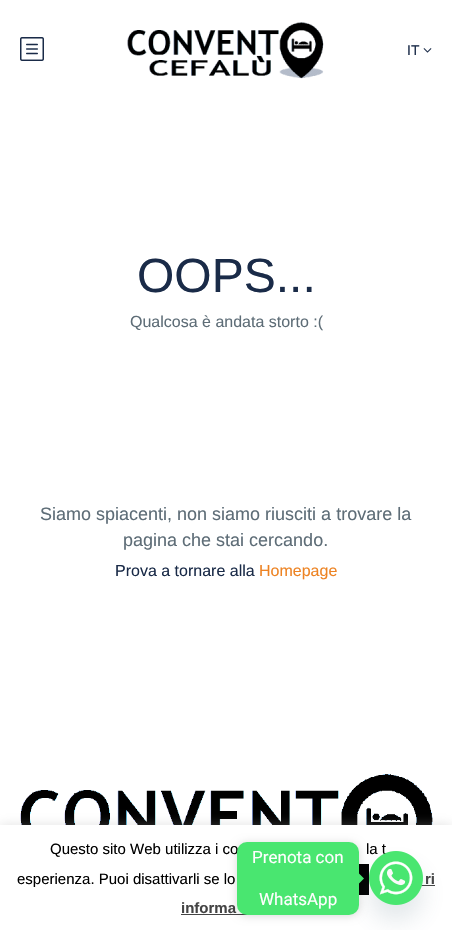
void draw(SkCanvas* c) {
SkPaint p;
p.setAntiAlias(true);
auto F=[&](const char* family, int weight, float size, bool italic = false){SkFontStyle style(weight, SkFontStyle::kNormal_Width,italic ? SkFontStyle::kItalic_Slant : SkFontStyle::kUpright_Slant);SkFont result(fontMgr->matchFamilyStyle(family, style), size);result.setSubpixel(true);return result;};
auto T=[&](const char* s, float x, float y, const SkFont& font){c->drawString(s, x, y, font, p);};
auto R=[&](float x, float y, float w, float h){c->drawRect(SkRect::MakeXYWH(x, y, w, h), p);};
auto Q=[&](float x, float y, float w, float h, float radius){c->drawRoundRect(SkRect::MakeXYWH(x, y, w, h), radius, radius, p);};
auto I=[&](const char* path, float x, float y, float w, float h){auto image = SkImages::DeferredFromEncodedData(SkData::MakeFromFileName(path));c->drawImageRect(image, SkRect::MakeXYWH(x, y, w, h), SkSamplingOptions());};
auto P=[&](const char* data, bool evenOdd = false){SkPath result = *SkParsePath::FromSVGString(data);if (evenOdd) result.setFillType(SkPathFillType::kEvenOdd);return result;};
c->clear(0xffffffff);
I("1.png",20,37,24,24);
I("2.png",127,22,197,57);
auto f1 = F("Liberation Sans",400,14);
p.setColor(0xff1a2b48);
T("IT",407,55,f1);
I("3.png",423,48,9,5);
auto f2 = F("Liberation Sans",400,48);
T("OOPS...",137,292,f2);
auto f3 = F("Liberation Sans",400,16);
p.setColor(0xff5e6d77);
T("Qualcosa è andata storto :(",130,327,f3);
auto f4 = F("Liberation Sans",400,18);
T("Siamo spiacenti, non siamo riusciti a trovare la",40,520,f4);
T("pagina che stai cercando.",123,546,f4);
p.setColor(0xff1a2b48);
T("Prova a tornare alla",115,576,f3);
p.setColor(0xffed8323);
T("Homepage",259,576,f3);
I("4.png",20,774,413,51);
p.setColor(0x4dacabab);
p.setMaskFilter(SkMaskFilter::MakeBlur(kNormal_SkBlurStyle, 5));
c->drawRect(SkRect::MakeXYWH(0,824,452,105),p);
p.setMaskFilter(nullptr);
p.setColor(0xffffffff);
R(0,825,452,105);
auto f5 = F("Liberation Sans",400,15);
p.setColor(0xff000000);
T("Questo sito Web utilizza i co",50,854,f5);
T("la t",366,854,f5);
T("esperienza. Puoi disattivarli se lo",17,884,f5);
R(359,864,10,31);
auto f6 = F("Liberation Sans",700,15);
p.setColor(0xff444444);
T("ri",425,884,f6);
R(421,885,14,1);
T("informa",181,913,f6);
R(181,914,66,1);
p.setColor(0x2949687e);
p.setMaskFilter(SkMaskFilter::MakeBlur(kNormal_SkBlurStyle, 12));
c->drawRoundRect(SkRect::MakeXYWH(369,867,54,54),27,27,p);
p.setMaskFilter(nullptr);
I("5.png",369,851,54,54);
p.setColor(0x26000000);
p.setMaskFilter(SkMaskFilter::MakeBlur(kNormal_SkBlurStyle, 4));
c->drawRoundRect(SkRect::MakeXYWH(237,843,122,73),10,10,p);
p.setMaskFilter(nullptr);
p.setColor(0xff49e670);
Q(237,842,122,73,10);
auto f7 = F("Roboto",400,17);
p.setColor(0xfffffefe);
T("Prenota con",252,863,f7);
p.setColor(0xff49e670);
c->drawPath(P("M359 883.5v-10l5 5z"),p);
p.setColor(0xfffffefe);
T("WhatsApp",259,905,f7);
}
